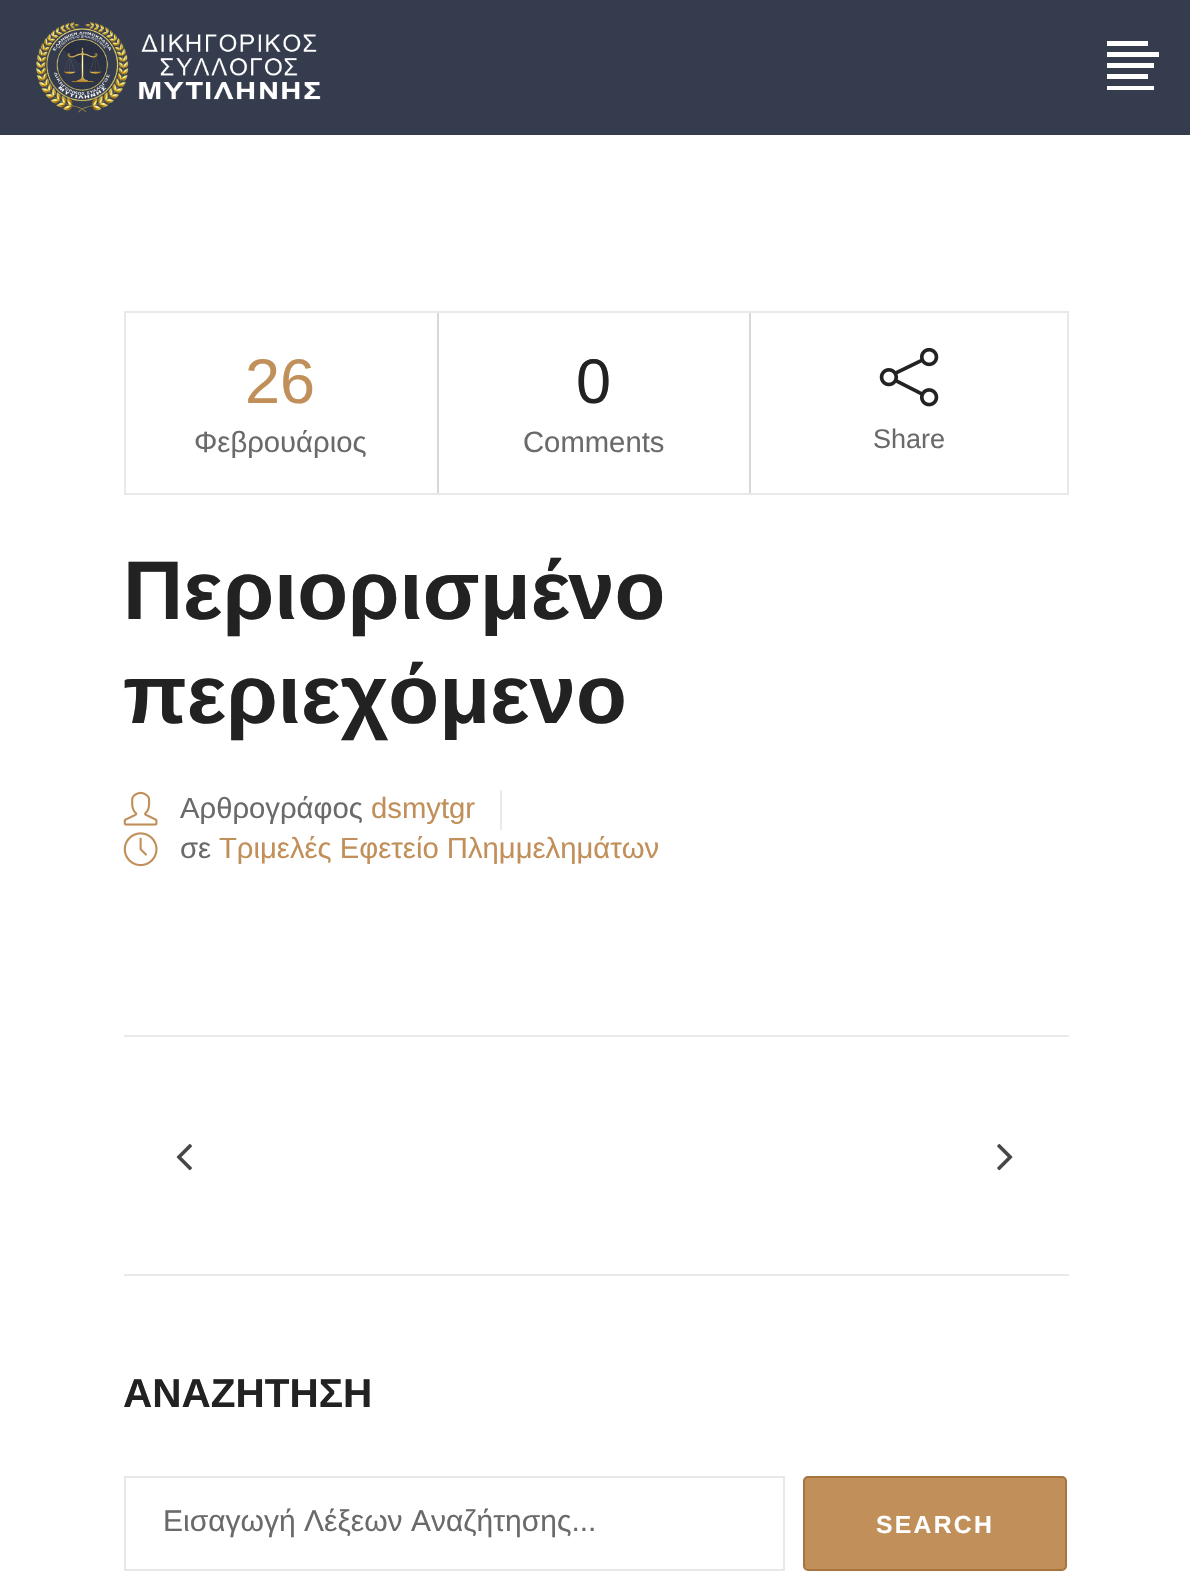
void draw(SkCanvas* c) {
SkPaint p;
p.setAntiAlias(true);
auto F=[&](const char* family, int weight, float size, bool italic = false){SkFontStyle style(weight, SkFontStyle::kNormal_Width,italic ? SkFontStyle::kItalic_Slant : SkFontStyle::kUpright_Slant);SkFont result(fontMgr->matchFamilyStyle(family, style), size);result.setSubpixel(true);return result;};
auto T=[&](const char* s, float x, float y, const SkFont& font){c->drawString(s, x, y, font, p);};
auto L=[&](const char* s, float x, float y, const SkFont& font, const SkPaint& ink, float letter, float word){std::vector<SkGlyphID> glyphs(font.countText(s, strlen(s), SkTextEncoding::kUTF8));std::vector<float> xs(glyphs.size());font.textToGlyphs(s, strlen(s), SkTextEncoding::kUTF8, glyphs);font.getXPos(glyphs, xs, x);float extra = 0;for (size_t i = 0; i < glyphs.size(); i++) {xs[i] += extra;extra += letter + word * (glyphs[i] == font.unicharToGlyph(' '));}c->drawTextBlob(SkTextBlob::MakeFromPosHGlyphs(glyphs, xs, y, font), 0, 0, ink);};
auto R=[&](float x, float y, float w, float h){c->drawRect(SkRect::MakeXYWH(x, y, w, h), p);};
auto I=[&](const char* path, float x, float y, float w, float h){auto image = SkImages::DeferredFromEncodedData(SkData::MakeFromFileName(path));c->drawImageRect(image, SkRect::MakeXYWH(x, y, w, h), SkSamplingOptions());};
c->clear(0xffffffff);
p.setColor(0xff353c4e);
R(0,0,1190,135);
I("1.png",36,22,285,91);
p.setColor(0xffffffff);
R(1107,41,41,5);
R(1107,52,52,5);
R(1107,63,47,5);
R(1107,74,41,5);
R(1107,86,47,4);
p.setColor(0xffe9e9e9);
R(124,1035,945,2);
p.setStroke(true);
p.setStrokeWidth(2);
c->drawRect(SkRect::MakeXYWH(125,312,943,182),p);
p.setStroke(false);
p.setColor(0xffd8d8d8);
R(437,313,2,180);
auto f1 = F("Liberation Sans",400,63);
p.setColor(0xffc18f59);
T("26",245,403,f1);
auto f2 = F("Liberation Sans",400,29.25);
p.setColor(0xff6a6a6a);
T("Φεβρουάριος",194,452,f2);
p.setColor(0xffd8d8d8);
R(749,313,2,180);
p.setColor(0xff222222);
T("0",576,403,f1);
p.setColor(0xff6a6a6a);
T("Comments",523,452,f2);
I("2.png",879,347,60,60);
auto f3 = F("Liberation Sans",400,27);
T("Share",873,448,f3);
auto f4 = F("Liberation Sans",700,83.25);
p.setColor(0xff222222);
T("Περιορισμένο",123,619,f4);
T("περιεχόμενο",123,723,f4);
I("3.png",123,791,35,35);
p.setColor(0xff6a6a6a);
T("Αρθρογράφος",180,818,f2);
p.setColor(0xffc18f59);
T("dsmytgr",371,818,f2);
p.setColor(0xffeaeaeb);
R(500,790,2,40);
I("4.png",123,832,35,35);
p.setColor(0xff6a6a6a);
T("σε",180,858,f2);
p.setColor(0xffc18f59);
T("Τριμελές Εφετείο Πλημμελημάτων",219,858,f2);
p.setColor(0xffe9e9e9);
R(124,1274,945,2);
I("5.png",176,1144,16,27);
I("6.png",997,1144,16,27);
auto f5 = F("Liberation Sans",700,40.5);
p.setColor(0xff222222);
T("ΑΝΑΖΗΤΗΣΗ",123,1407,f5);
p.setStroke(true);
p.setColor(0xffe8e8e8);
c->drawRect(SkRect::MakeXYWH(125,1477,659,93),p);
auto f6 = F("Liberation Sans",400,30);
p.setStroke(false);
p.setColor(0xff6a6a6a);
T("Εισαγωγή Λέξεων Αναζήτησης...",163,1531,f6);
p.setColor(0xffc18f59);
c->drawRoundRect(SkRect::MakeXYWH(804,1477,262,93),4,4,p);
p.setStroke(true);
p.setColor(0xffa6743e);
c->drawRoundRect(SkRect::MakeXYWH(804,1477,262,93),4,4,p);
auto f7 = F("Liberation Sans",700,24.75);
p.setStroke(false);
p.setColor(0xffffffff);
L("SEARCH",876,1533,f7,p,2.25,0);
}
